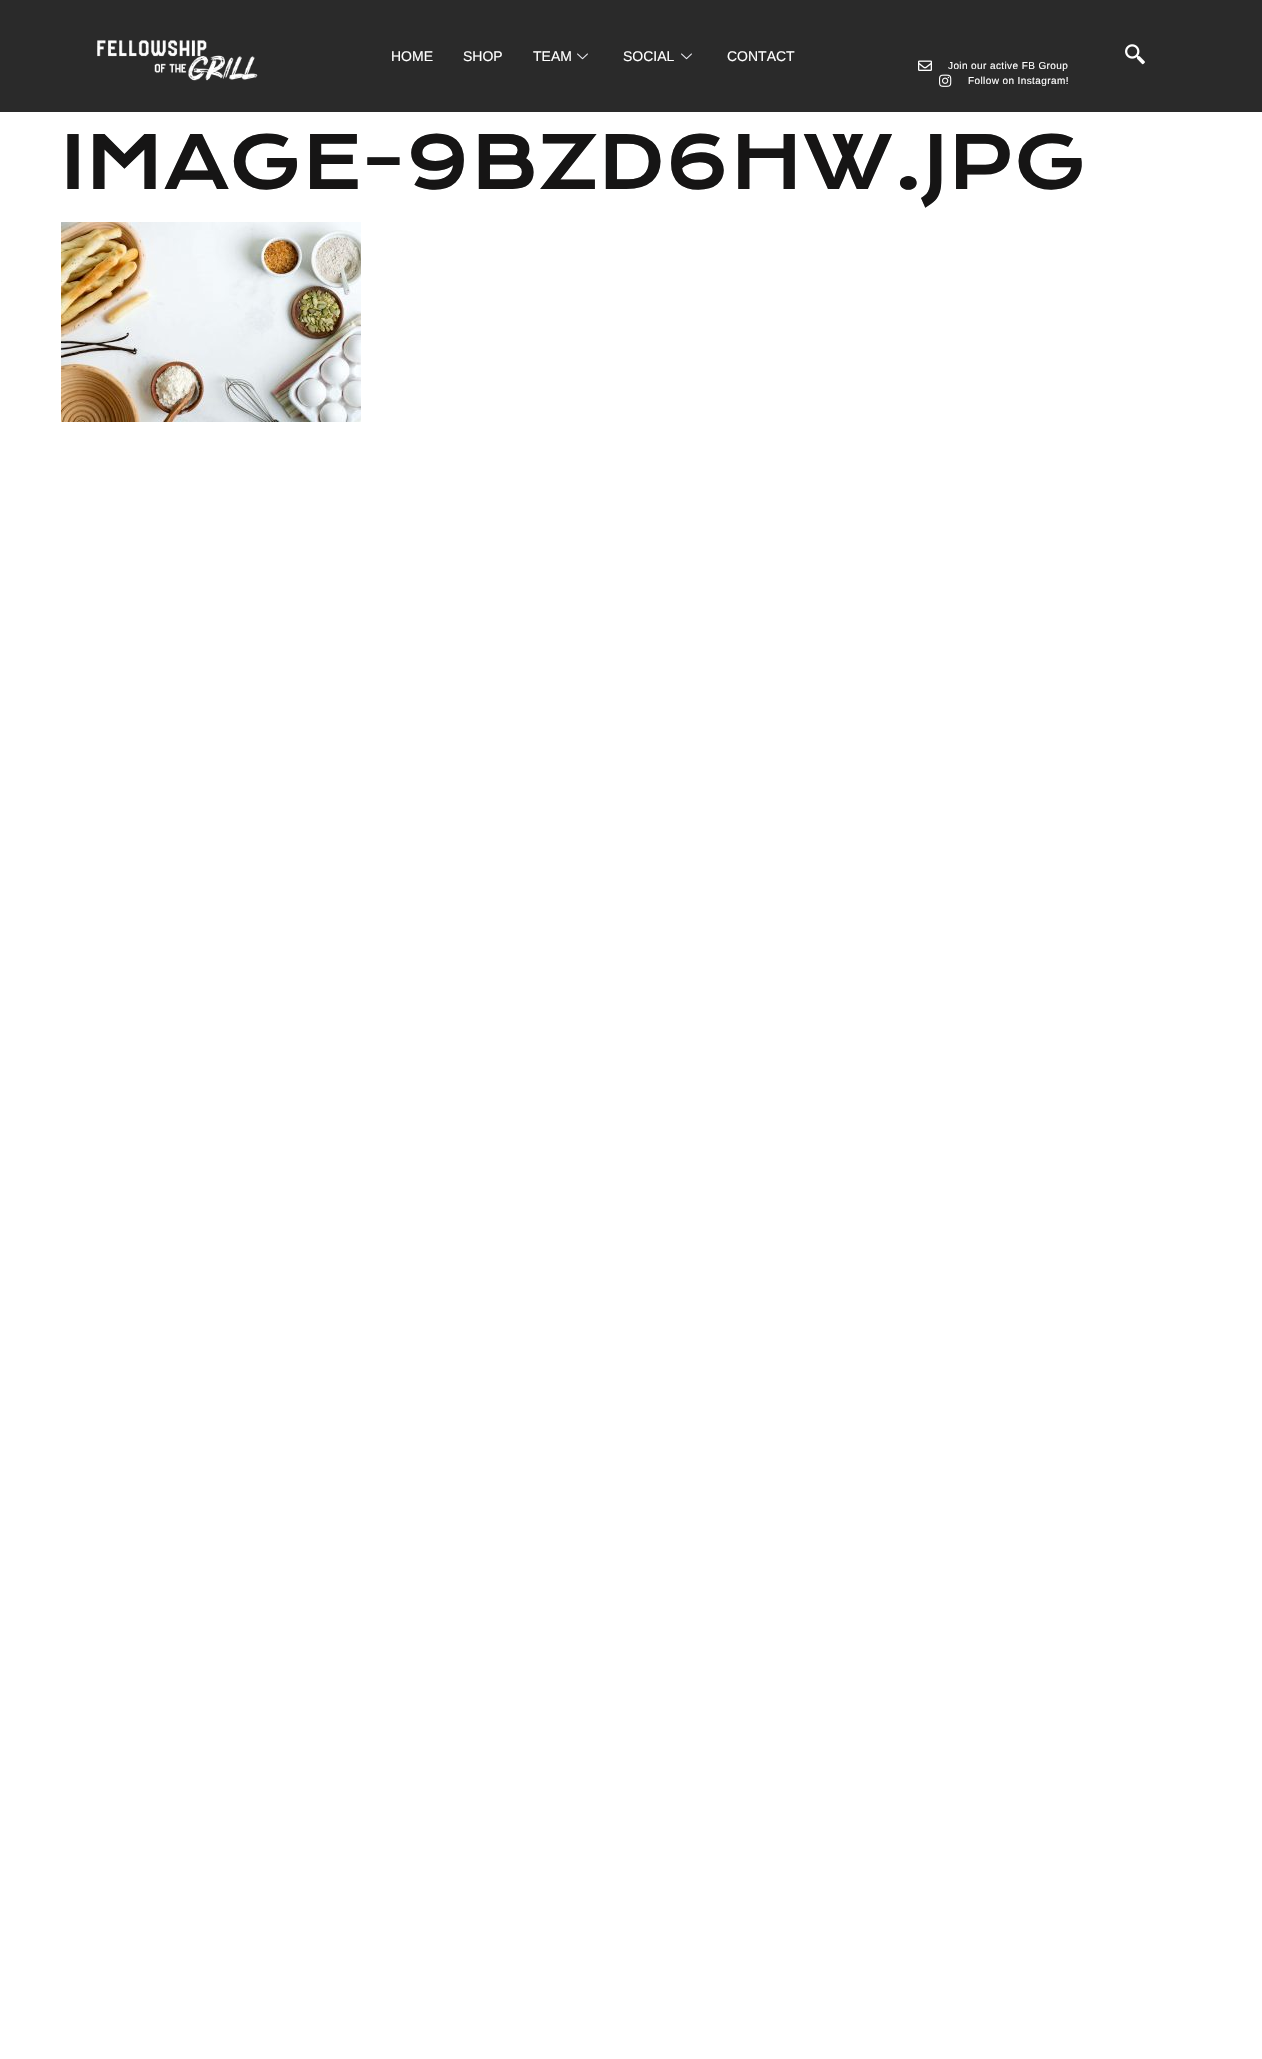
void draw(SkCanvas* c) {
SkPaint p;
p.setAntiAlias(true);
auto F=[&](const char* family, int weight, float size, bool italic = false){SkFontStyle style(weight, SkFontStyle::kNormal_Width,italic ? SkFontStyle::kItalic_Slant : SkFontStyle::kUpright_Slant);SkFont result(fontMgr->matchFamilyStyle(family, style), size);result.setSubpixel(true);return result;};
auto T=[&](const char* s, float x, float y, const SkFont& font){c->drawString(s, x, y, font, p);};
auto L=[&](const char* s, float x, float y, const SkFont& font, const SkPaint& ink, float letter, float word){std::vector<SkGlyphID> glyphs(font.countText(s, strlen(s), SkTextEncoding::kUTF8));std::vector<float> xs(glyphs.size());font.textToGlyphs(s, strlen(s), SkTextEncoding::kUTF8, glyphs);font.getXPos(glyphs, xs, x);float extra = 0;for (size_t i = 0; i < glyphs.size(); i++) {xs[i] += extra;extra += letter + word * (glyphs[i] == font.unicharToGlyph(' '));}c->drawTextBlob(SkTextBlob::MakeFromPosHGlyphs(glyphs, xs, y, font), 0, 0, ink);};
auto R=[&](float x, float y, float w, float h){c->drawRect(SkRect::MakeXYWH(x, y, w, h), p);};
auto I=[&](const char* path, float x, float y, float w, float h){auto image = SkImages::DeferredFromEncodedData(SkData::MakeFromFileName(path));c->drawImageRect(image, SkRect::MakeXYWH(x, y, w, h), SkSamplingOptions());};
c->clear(0xffffffff);
p.setColor(0xff2a2a2a);
R(0,0,1262,112);
I("1.png",97,40,161,41);
auto f1 = F("Liberation Sans",400,14);
p.setColor(0xffffffff);
T("HOME",391,61,f1);
T("SHOP",463,61,f1);
T("TEAM",533,61,f1);
I("2.png",577,53,11,7);
T("SOCIAL",623,61,f1);
I("2.png",681,53,11,7);
T("CONTACT",727,61,f1);
I("3.png",1125,44,20,21);
I("4.png",918,60,14,11);
auto f2 = F("Liberation Sans",400,10);
L("Join our active FB Group",948,69,f2,p,.4,0);
I("5.png",939,74,13,13);
L("Follow on Instagram!",968,84,f2,p,.4,0);
auto f3 = F("Krona One",400,72);
p.setColor(0xff161515);
L("IMAGE-9BZD6HW.JPG",61,189,f3,p,.4,0);
I("6.png",61,222,300,200);
}
